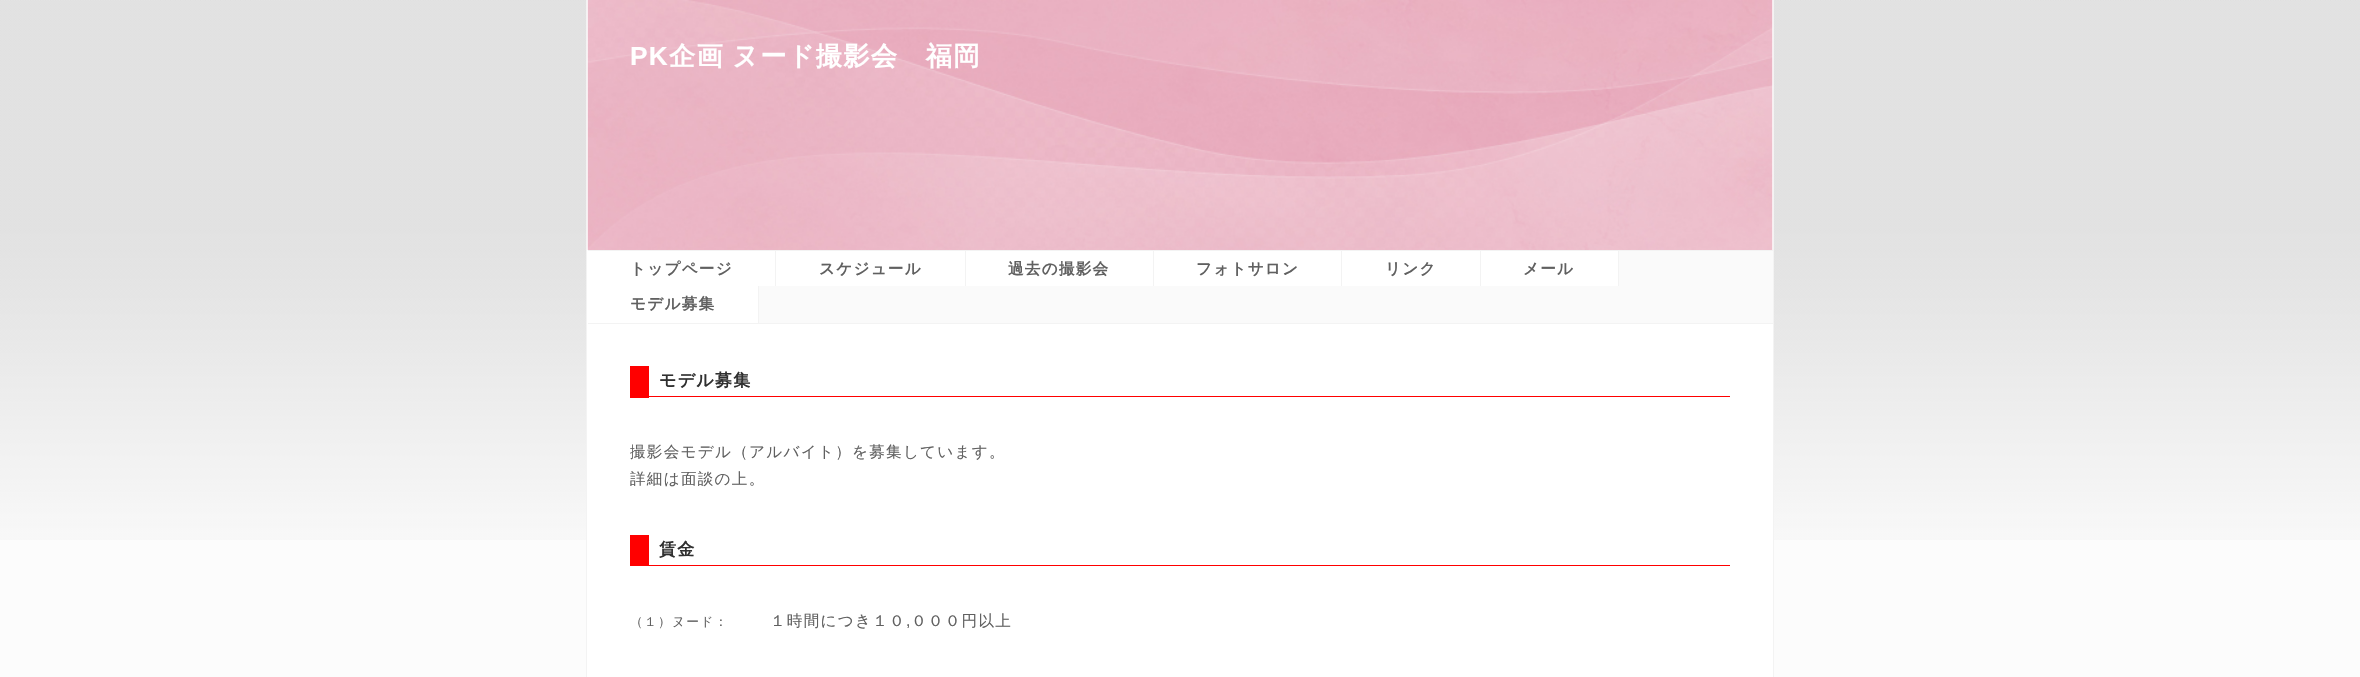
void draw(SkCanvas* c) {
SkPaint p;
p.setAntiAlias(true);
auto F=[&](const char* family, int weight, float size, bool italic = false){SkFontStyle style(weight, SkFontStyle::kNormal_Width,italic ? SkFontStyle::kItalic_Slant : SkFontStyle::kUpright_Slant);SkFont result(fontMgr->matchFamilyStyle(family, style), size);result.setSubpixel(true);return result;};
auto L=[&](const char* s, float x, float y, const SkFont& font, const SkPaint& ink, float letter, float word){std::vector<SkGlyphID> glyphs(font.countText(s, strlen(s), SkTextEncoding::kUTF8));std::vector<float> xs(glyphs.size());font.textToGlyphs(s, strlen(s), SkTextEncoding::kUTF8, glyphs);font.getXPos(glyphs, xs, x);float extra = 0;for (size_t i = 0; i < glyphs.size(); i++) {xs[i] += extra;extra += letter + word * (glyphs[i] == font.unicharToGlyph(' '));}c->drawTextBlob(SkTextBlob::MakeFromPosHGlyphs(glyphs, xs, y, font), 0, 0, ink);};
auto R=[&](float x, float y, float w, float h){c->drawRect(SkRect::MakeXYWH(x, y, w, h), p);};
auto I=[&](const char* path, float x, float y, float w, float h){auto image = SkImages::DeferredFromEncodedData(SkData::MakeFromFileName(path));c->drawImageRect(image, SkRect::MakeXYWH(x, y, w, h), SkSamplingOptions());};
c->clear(0xfffcfcfc);
I("1.png",0,0,2360,540);
p.setColor(0xffffffff);
R(587,0,1186,677);
p.setColor(0xfff3f3f3);
R(1773,0,1,677);
R(586,0,1,677);
p.setColor(0xfffcfcfc);
R(1772,0,1,250);
I("2.png",587,0,1186,250);
auto f1 = F("Liberation Sans",700,26.25);
p.setColor(0xffffffff);
L("PK",630,65,f1,p,1.25,0);
auto f2 = F("WenQuanYi Zen Hei",700,26.25);
L("企画 ヌード撮影会　福岡",669,65,f2,p,1.25,-1);
p.setColor(0xfffafafa);
R(759,251,1014,72);
p.setColor(0xfff3f3f3);
R(588,250,1185,1);
R(588,323,1185,1);
p.setColor(0xffffffff);
R(759,251,16,35);
p.setColor(0xfff3f3f3);
R(775,251,1,35);
auto f3 = F("WenQuanYi Zen Hei",700,15.6);
p.setColor(0xff606060);
L("トップページ",630,274,f3,p,1.25,0);
p.setColor(0xffffffff);
R(776,251,189,35);
p.setColor(0xfff3f3f3);
R(965,251,1,35);
p.setColor(0xff606060);
L("スケジュール",819,274,f3,p,1.25,0);
p.setColor(0xffffffff);
R(966,251,187,35);
p.setColor(0xfff3f3f3);
R(1153,251,1,35);
p.setColor(0xff606060);
L("過去の撮影会",1008,274,f3,p,1.25,0);
p.setColor(0xffffffff);
R(1154,251,326,35);
p.setColor(0xfff3f3f3);
R(1341,251,1,35);
p.setColor(0xff606060);
L("フォトサロン",1196,274,f3,p,1.25,0);
p.setColor(0xfff3f3f3);
R(1480,251,1,35);
p.setColor(0xff606060);
L("リンク",1385,274,f3,p,1.25,0);
p.setColor(0xffffffff);
R(1481,251,137,35);
p.setColor(0xfff3f3f3);
R(1618,251,1,35);
p.setColor(0xff606060);
L("メール",1523,274,f3,p,1.25,0);
p.setColor(0xfff3f3f3);
R(758,286,1,37);
p.setColor(0xff606060);
L("モデル募集",630,309,f3,p,1.25,0);
p.setColor(0xffff0000);
R(649,396,1081,1);
R(630,366,19,32);
auto f4 = F("WenQuanYi Zen Hei",700,17);
p.setColor(0xff303030);
L("モデル募集",659,386,f4,p,1.25,0);
auto f5 = F("WenQuanYi Zen Hei",500,15.6);
p.setColor(0xff606060);
L("撮影会モデル（アルバイト）を募集しています。",630,457,f5,p,1.25,0);
L("詳細は面談の上。",630,484,f5,p,1.25,0);
p.setColor(0xffff0000);
R(649,565,1081,1);
R(630,535,19,31);
p.setColor(0xff303030);
L("賃金",659,555,f4,p,1.25,0);
auto f6 = F("WenQuanYi Zen Hei",500,12.75);
p.setColor(0xff606060);
L("（１）ヌード：",630,626,f6,p,1.25,0);
L("１時間につき１０",770,626,f5,p,1.25,0);
auto f7 = F("Liberation Sans",400,15.6);
L(",",906,626,f7,p,1.25,0);
L("０００円以上",911,626,f5,p,1.25,0);
}
